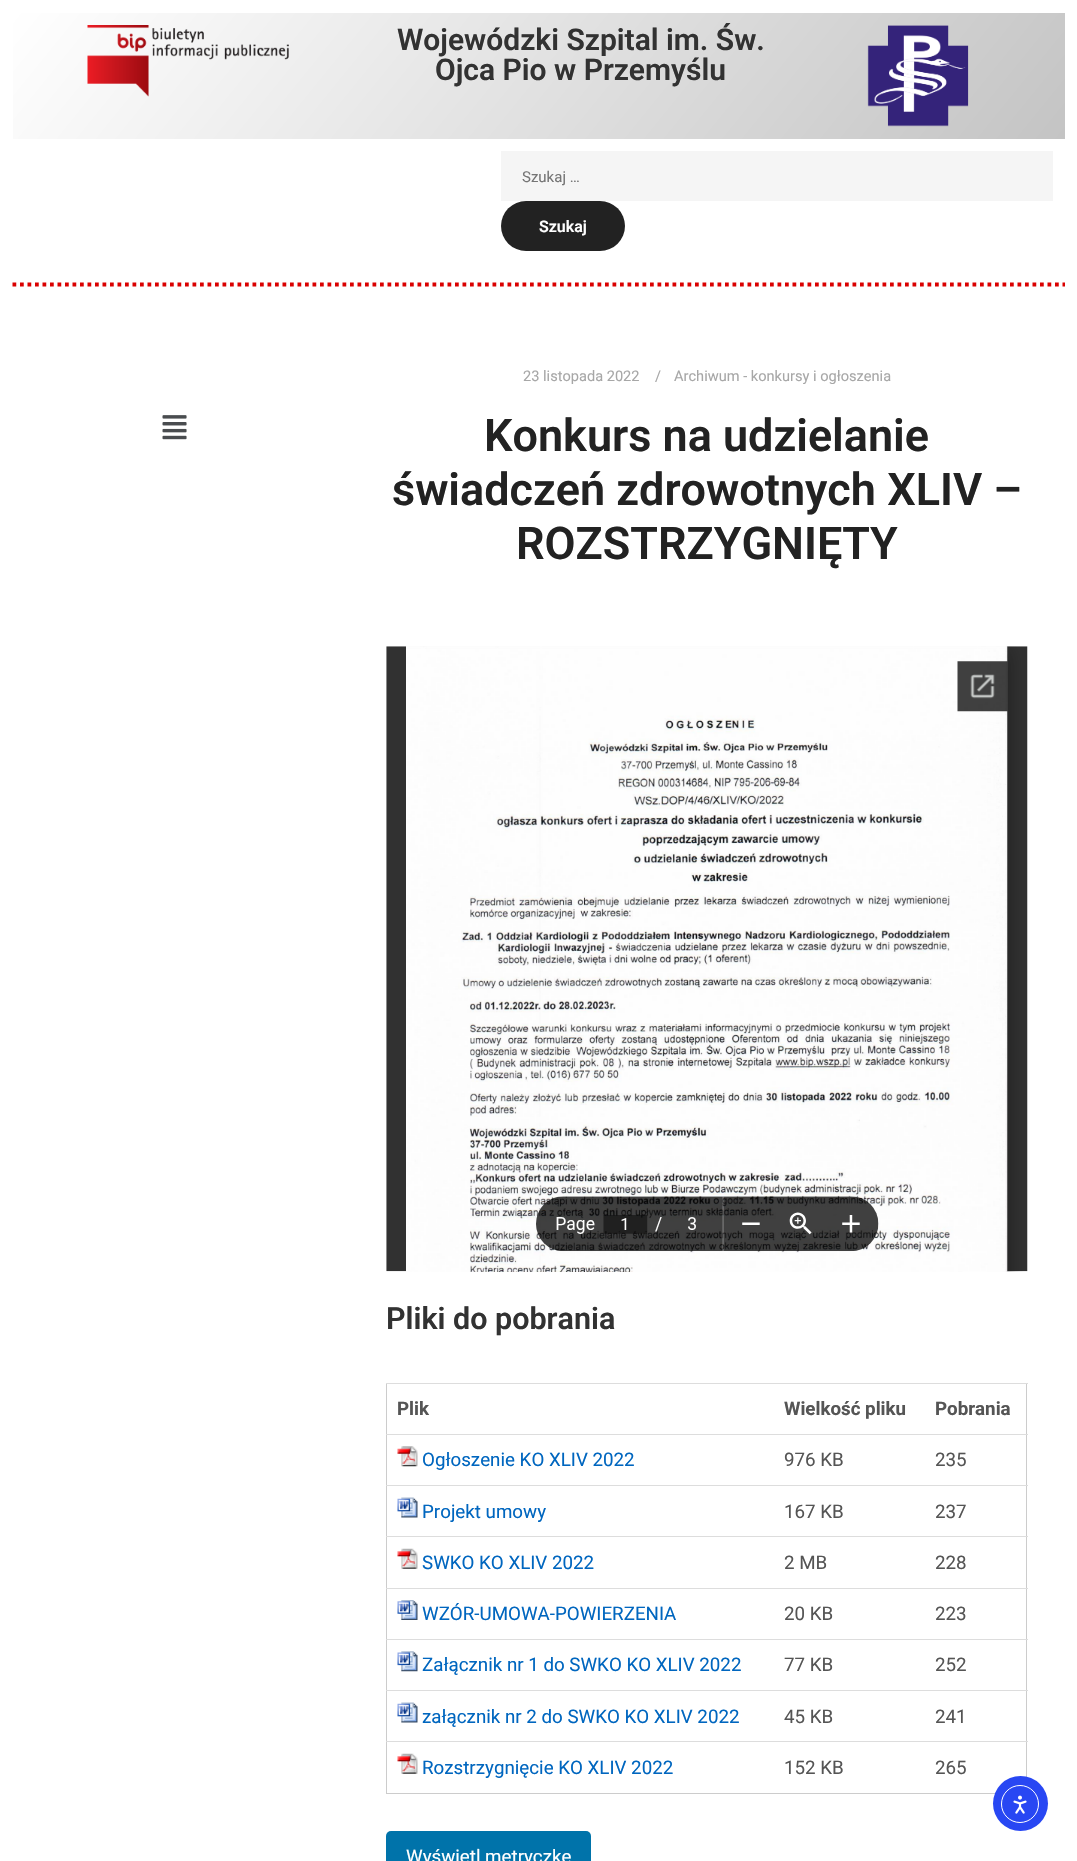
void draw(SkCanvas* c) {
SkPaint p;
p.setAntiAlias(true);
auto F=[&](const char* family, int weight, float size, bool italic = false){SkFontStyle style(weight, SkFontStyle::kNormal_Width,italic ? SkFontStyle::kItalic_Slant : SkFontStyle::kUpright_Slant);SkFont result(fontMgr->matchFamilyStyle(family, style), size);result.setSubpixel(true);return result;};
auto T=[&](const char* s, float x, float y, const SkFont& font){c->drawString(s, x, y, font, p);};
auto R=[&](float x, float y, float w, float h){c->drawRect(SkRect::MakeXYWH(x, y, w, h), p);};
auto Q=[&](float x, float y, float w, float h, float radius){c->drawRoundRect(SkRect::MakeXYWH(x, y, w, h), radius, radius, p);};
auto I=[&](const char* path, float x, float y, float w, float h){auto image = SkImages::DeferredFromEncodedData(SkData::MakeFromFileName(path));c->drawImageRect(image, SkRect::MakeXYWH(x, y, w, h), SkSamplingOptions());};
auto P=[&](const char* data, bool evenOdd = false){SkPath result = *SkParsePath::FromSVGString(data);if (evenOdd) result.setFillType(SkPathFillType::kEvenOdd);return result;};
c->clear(0xffffffff);
{
const SkColor colors[] = {0xffffffff,0xffc4c4c4};
const float stops[] = {0,1};
const SkPoint ends[] = {{190,-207}, {887,358}};
p.setShader(SkGradientShader::MakeLinear(ends, colors, stops, 2, SkTileMode::kClamp));
p.setAlpha(255);
}
R(13,13,1052,126);
I("1.png",87,25,202,72);
auto f1 = F("Roboto",600,30);
p.setShader(nullptr);
p.setColor(0xff323232);
T("Wojewódzki Szpital im. Św.",397,50,f1);
T("Ojca Pio w Przemyślu",435,80,f1);
I("2.png",867,25,102,102);
p.setColor(0xfff5f5f5);
R(501,151,552,50);
auto f2 = F("Roboto",400,15);
p.setColor(0xff757575);
T("Szukaj …",522,182,f2);
p.setColor(0xff222222);
Q(501,201,124,50,25);
auto f3 = F("Roboto",600,16);
p.setColor(0xffffffff);
T("Szukaj",539,232,f3);
p.setStroke(true);
p.setStrokeWidth(3.8);
p.setColor(0xffda0000);
p.setPathEffect(SkDashPathEffect::Make({{3.75f,3.75f}}, 0));
c->drawPath(P("M12.5 284.5h1052.5"),p);
p.setPathEffect(nullptr);
I("3.png",162,415,25,25);
auto f4 = F("Roboto",400,14.6);
p.setStroke(false);
p.setColor(0xffa7a7a7);
T("23 listopada 2022",523,381,f4);
T("/",655,381,f4);
T("Archiwum - konkursy i ogłoszenia",674,381,f4);
auto f5 = F("Roboto",600,45);
p.setColor(0xff222222);
T("Konkurs na udzielanie",484,451,f5);
T("świadczeń zdrowotnych XLIV –",392,505,f5);
T("ROZSTRZYGNIĘTY",516,559,f5);
I("4.png",386,646,642,626);
auto f6 = F("Roboto",600,30.5);
p.setColor(0xff323232);
T("Pliki do pobrania",386,1329,f6);
p.setColor(0xffcccccc);
R(1026,1383,1,394);
R(386,1793,610,1);
R(386,1383,1,411);
auto f7 = F("Roboto",700,18.75);
p.setColor(0xff555555);
T("Plik",397,1415,f7);
T("Wielkość pliku",784,1415,f7);
p.setColor(0xffdddddd);
R(386,1383,642,1);
p.setColor(0xff555555);
T("Pobrania",935,1415,f7);
I("5.png",397,1446,21,21);
auto f8 = F("Roboto",400,18.75);
p.setColor(0xff0066bf);
T("Ogłoszenie KO XLIV 2022",422,1466,f8);
p.setColor(0xff555555);
T("976 KB",784,1466,f8);
p.setColor(0xffdddddd);
R(386,1434,642,1);
p.setColor(0xff555555);
T("235",935,1466,f8);
I("6.png",397,1497,21,21);
p.setColor(0xff0066bf);
T("Projekt umowy",422,1518,f8);
p.setColor(0xff555555);
T("167 KB",784,1518,f8);
p.setColor(0xffdddddd);
R(386,1485,642,1);
p.setColor(0xff555555);
T("237",935,1518,f8);
I("7.png",397,1548,21,21);
p.setColor(0xff0066bf);
T("SWKO KO XLIV 2022",422,1569,f8);
p.setColor(0xff555555);
T("2 MB",784,1569,f8);
p.setColor(0xffdddddd);
R(386,1536,642,1);
p.setColor(0xff555555);
T("228",935,1569,f8);
I("8.png",397,1600,21,20);
p.setColor(0xff0066bf);
T("WZÓR-UMOWA-POWIERZENIA",422,1620,f8);
p.setColor(0xff555555);
T("20 KB",784,1620,f8);
p.setColor(0xffdddddd);
R(386,1588,642,1);
p.setColor(0xff555555);
T("223",935,1620,f8);
I("9.png",397,1651,21,21);
p.setColor(0xff0066bf);
T("Załącznik nr 1 do SWKO KO XLIV 2022",422,1671,f8);
p.setColor(0xff555555);
T("77 KB",784,1671,f8);
p.setColor(0xffdddddd);
R(386,1639,642,1);
p.setColor(0xff555555);
T("252",935,1671,f8);
I("6.png",397,1702,21,21);
p.setColor(0xff0066bf);
T("załącznik nr 2 do SWKO KO XLIV 2022",422,1723,f8);
p.setColor(0xff555555);
T("45 KB",784,1723,f8);
p.setColor(0xffdddddd);
R(386,1690,642,1);
p.setColor(0xff555555);
T("241",935,1723,f8);
I("10.png",397,1753,21,21);
p.setColor(0xff0066bf);
T("Rozstrzygnięcie KO XLIV 2022",422,1774,f8);
p.setColor(0xff555555);
T("152 KB",784,1774,f8);
p.setColor(0xffdddddd);
R(386,1741,642,1);
p.setColor(0xff555555);
T("265",935,1774,f8);
p.setColor(0xff0073aa);
Q(386,1831,205,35,5);
p.setColor(0xffffffff);
T("Wyświetl metryczkę",406,1863,f8);
p.setColor(0xff2847f3);
c->drawCircle(1020.5,1803.5,27.5,p);
p.setStroke(true);
p.setStrokeWidth(1);
p.setColor(0xffffffff);
c->drawCircle(1020,1804,18.5,p);
I("11.png",1013,1795,14,19);
}
